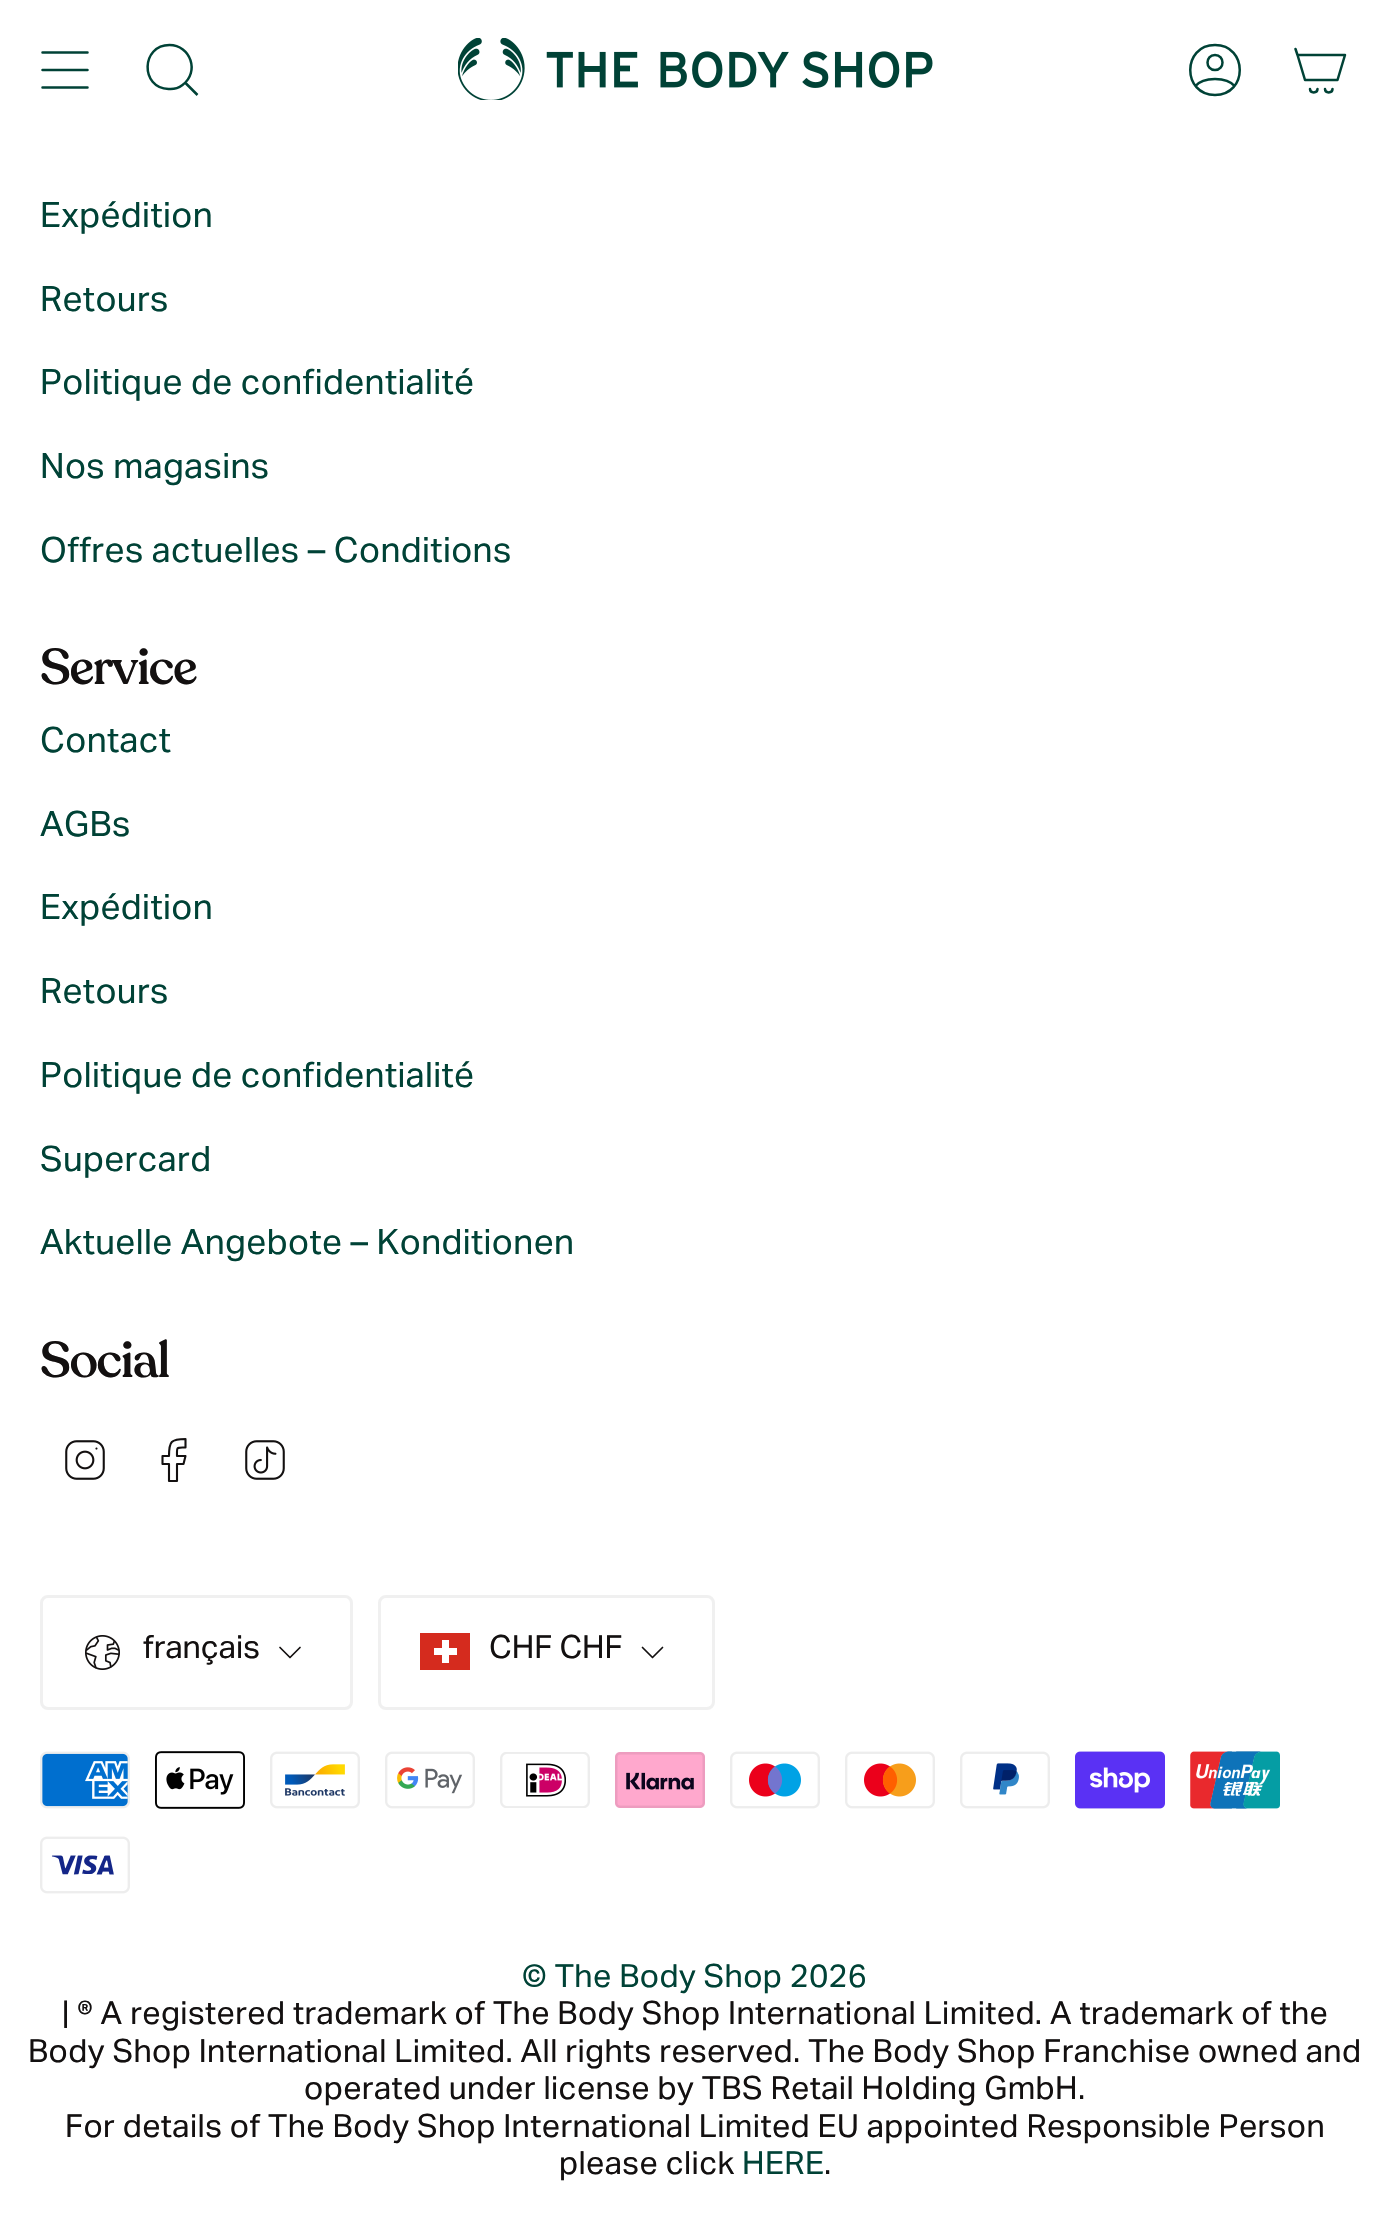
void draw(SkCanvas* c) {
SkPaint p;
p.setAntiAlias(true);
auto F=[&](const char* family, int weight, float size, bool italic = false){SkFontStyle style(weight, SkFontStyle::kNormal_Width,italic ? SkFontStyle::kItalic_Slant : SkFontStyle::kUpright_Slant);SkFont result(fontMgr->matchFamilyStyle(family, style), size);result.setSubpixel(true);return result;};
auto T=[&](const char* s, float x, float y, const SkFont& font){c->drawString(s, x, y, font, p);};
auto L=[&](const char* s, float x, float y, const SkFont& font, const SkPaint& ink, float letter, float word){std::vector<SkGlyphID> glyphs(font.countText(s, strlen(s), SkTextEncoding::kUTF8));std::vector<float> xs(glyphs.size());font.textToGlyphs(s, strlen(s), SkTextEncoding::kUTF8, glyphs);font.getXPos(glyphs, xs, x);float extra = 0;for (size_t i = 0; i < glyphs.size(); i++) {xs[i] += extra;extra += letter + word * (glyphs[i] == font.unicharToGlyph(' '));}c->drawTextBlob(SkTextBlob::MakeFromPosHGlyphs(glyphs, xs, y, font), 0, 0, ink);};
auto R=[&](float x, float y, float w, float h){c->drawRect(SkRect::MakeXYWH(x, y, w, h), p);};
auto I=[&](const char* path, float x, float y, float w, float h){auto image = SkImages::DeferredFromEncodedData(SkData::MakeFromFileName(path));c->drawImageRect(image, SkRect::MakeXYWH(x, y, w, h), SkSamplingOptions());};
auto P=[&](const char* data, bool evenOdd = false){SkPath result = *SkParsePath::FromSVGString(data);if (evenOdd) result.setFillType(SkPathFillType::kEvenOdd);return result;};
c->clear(0xffffffff);
p.setStroke(true);
p.setStrokeWidth(2.5);
p.setStrokeCap(SkPaint::kRound_Cap);
p.setStrokeJoin(SkPaint::kRound_Join);
p.setColor(0xff004236);
c->drawPath(P("M42.5 52.5h45m-45 17.5h45m-45 17.5h45"),p);
p.setStrokeCap(SkPaint::kButt_Cap);
p.setStrokeJoin(SkPaint::kMiter_Join);
c->drawPath(P("M169.5 45c21 0 30.5 27 13 40c-4 3-9 4.5-14 4c-28.5-1-27.5-44 1-44zm16 38l12 12"),p);
I("1.png",458,38,475,62);
p.setStrokeCap(SkPaint::kRound_Cap);
p.setStrokeJoin(SkPaint::kRound_Join);
c->drawPath(P("M1215 45c-33 0-33 50 0 50c33 0 33-50 0-50zm-19.5 41c7.5-9.5 31.5-9.5 39 0m-19.5-16c10 0 10-15 0-15c-10 0-10 15 0 15z"),p);
c->drawPath(P("M1297.5 55h47.5l-7.5 25h-32.5zm0 0l-2-6m22 40c0 4.5-7.5 4.5-7.5 0m22.5 0c0 4.5-7.5 4.5-7.5 0"),p);
auto f1 = F("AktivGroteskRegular",400,35);
p.setStroke(false);
L("Expédition",40,227,f1,p,.4,0);
L("Retours",40,311,f1,p,.4,0);
L("Politique de confidentialité",40,394,f1,p,.4,0);
L("Nos magasins",40,478,f1,p,.4,0);
L("Offres actuelles – Conditions",40,562,f1,p,.4,0);
auto f2 = F("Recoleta",500,50);
p.setColor(0xff131010);
L("Service",40,684,f2,p,-1.25,0);
p.setColor(0xff004236);
L("Contact",40,752,f1,p,.4,0);
L("AGBs",40,836,f1,p,.4,0);
L("Expédition",40,919,f1,p,.4,0);
L("Retours",40,1003,f1,p,.4,0);
L("Politique de confidentialité",40,1087,f1,p,.4,0);
L("Supercard",40,1171,f1,p,.4,0);
L("Aktuelle Angebote – Konditionen",40,1254,f1,p,.4,0);
p.setColor(0xff131010);
L("Social",40,1377,f2,p,-1.25,0);
I("2.png",65,1440,40,40);
p.setStroke(true);
p.setStrokeWidth(2.1);
c->drawPath(P("M185.5 1439c-14.5 0-16.5 2.5-16.5 17h-6.5v8h6.5v17h8v-17h6.5l2-8h-8.5c0-9.5-1-8.5 8.5-8.5z"),p);
I("3.png",245,1440,40,40);
p.setStrokeWidth(3);
p.setStrokeCap(SkPaint::kButt_Cap);
p.setStrokeJoin(SkPaint::kMiter_Join);
p.setColor(0xfff0f0f0);
c->drawRoundRect(SkRect::MakeXYWH(41.5,1596.5,310,112),6.5,6.5,p);
I("4.png",85,1635,35,35);
auto f3 = F("AktivGroteskRegular",400,32);
p.setStroke(false);
p.setColor(0xff131010);
T("français",143,1658,f3);
p.setStroke(true);
p.setStrokeWidth(1.7);
p.setStrokeCap(SkPaint::kRound_Cap);
p.setStrokeJoin(SkPaint::kRound_Join);
c->drawPath(P("M280 1647.5l10 10l10-10"),p);
p.setStrokeWidth(3);
p.setStrokeCap(SkPaint::kButt_Cap);
p.setStrokeJoin(SkPaint::kMiter_Join);
p.setColor(0xfff0f0f0);
c->drawRoundRect(SkRect::MakeXYWH(379.5,1596.5,334,112),6.5,6.5,p);
p.setStroke(false);
p.setColor(0xffd52b1e);
R(420,1633,50,37);
p.setColor(0xffffffff);
R(434,1648,23,7);
R(442,1640,7,23);
p.setColor(0xff131010);
T("CHF CHF",489,1658,f3);
p.setStroke(true);
p.setStrokeWidth(1.7);
p.setStrokeCap(SkPaint::kRound_Cap);
p.setStrokeJoin(SkPaint::kRound_Join);
c->drawPath(P("M642.5 1647.5l10 10l10-10"),p);
I("5.png",40,1751,90,58);
I("6.png",155,1751,90,58);
I("7.png",270,1751,90,58);
I("8.png",385,1751,90,58);
I("9.png",500,1752,90,56);
I("10.png",615,1752,90,56);
I("11.png",730,1751,90,58);
I("12.png",845,1751,90,58);
I("13.png",960,1751,90,58);
I("14.png",1075,1751,90,58);
I("15.png",1190,1751,90,58);
I("16.png",40,1836,90,58);
p.setStroke(false);
p.setColor(0xff004236);
L("© The Body Shop 2026",522,1987,f3,p,.4,0);
p.setColor(0xff131010);
L("| ® A registered trademark of The Body Shop International Limited. A trademark of the",62,2024,f3,p,.4,0);
L("Body Shop International Limited. All rights reserved. The Body Shop Franchise owned and",28,2062,f3,p,.4,0);
L("operated under license by TBS Retail Holding GmbH.",304,2099,f3,p,.4,0);
L("For details of The Body Shop International Limited EU appointed Responsible Person",65,2137,f3,p,.4,0);
L("please click",559,2174,f3,p,.4,0);
p.setColor(0xff004236);
L("HERE",742,2174,f3,p,.4,0);
p.setColor(0xff131010);
L(".",824,2174,f3,p,.4,0);
}
